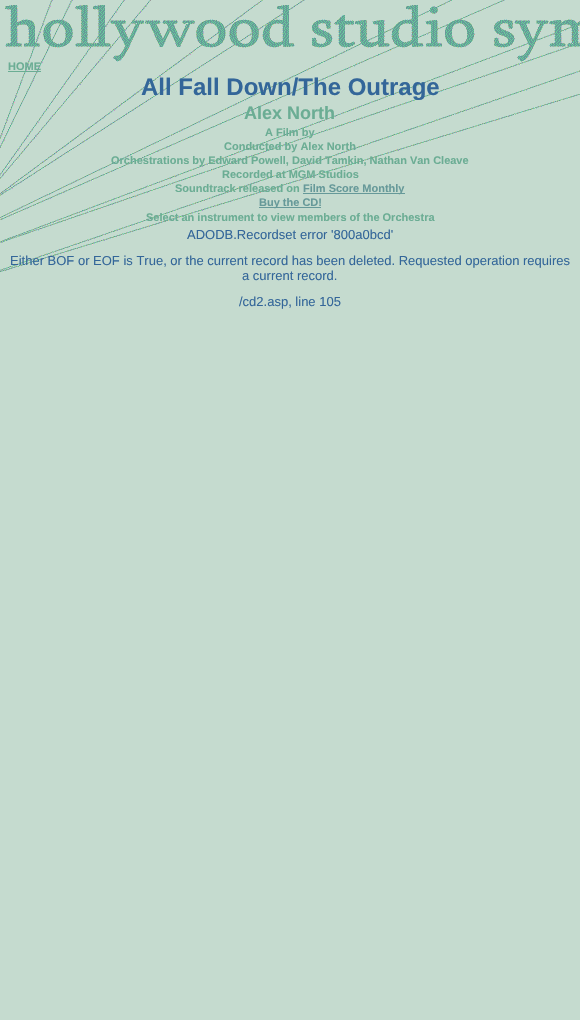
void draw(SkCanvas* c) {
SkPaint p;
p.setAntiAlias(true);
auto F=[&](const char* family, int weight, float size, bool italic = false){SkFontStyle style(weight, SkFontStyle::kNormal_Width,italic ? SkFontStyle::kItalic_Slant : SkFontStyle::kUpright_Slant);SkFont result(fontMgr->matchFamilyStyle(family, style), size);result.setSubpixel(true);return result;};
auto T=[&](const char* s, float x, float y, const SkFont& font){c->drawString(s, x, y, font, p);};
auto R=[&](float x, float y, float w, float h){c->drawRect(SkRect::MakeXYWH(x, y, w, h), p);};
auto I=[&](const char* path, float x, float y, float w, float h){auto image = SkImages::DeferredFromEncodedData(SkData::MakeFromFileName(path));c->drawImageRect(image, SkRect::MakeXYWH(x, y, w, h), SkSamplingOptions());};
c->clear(0xffc5dbcf);
I("1.png",0,0,580,272);
auto f1 = F("Liberation Sans",700,11);
p.setColor(0xff6bad94);
T("HOME",8,70,f1);
R(8,71,33,1);
auto f2 = F("Liberation Sans",700,24);
p.setColor(0xff336699);
T("All Fall Down/The Outrage",141,95,f2);
auto f3 = F("Liberation Sans",700,18);
p.setColor(0xff6bad94);
T("Alex North",244,119,f3);
T("A Film by",265,136,f1);
T("Conducted by Alex North",224,150,f1);
T("Orchestrations by Edward Powell, David Tamkin, Nathan Van Cleave",111,164,f1);
T("Recorded at MGM Studios",222,178,f1);
T("Soundtrack released on",175,192,f1);
p.setColor(0xff669999);
R(303,193,102,1);
T("Film Score Monthly",303,192,f1);
R(259,207,62,1);
T("Buy the CD!",259,206,f1);
p.setColor(0xff6bad94);
T("Select an instrument to view members of the Orchestra",146,221,f1);
auto f4 = F("Liberation Sans",400,13);
p.setColor(0xff336699);
T("ADODB.Recordset",187,239,f4);
T("error '800a0bcd'",300,239,f4);
T("Either BOF or EOF is True, or the current record has been deleted. Requested operation requires",10,265,f4);
T("a current record.",242,280,f4);
T("/cd2.asp, line 105",239,306,f4);
}
